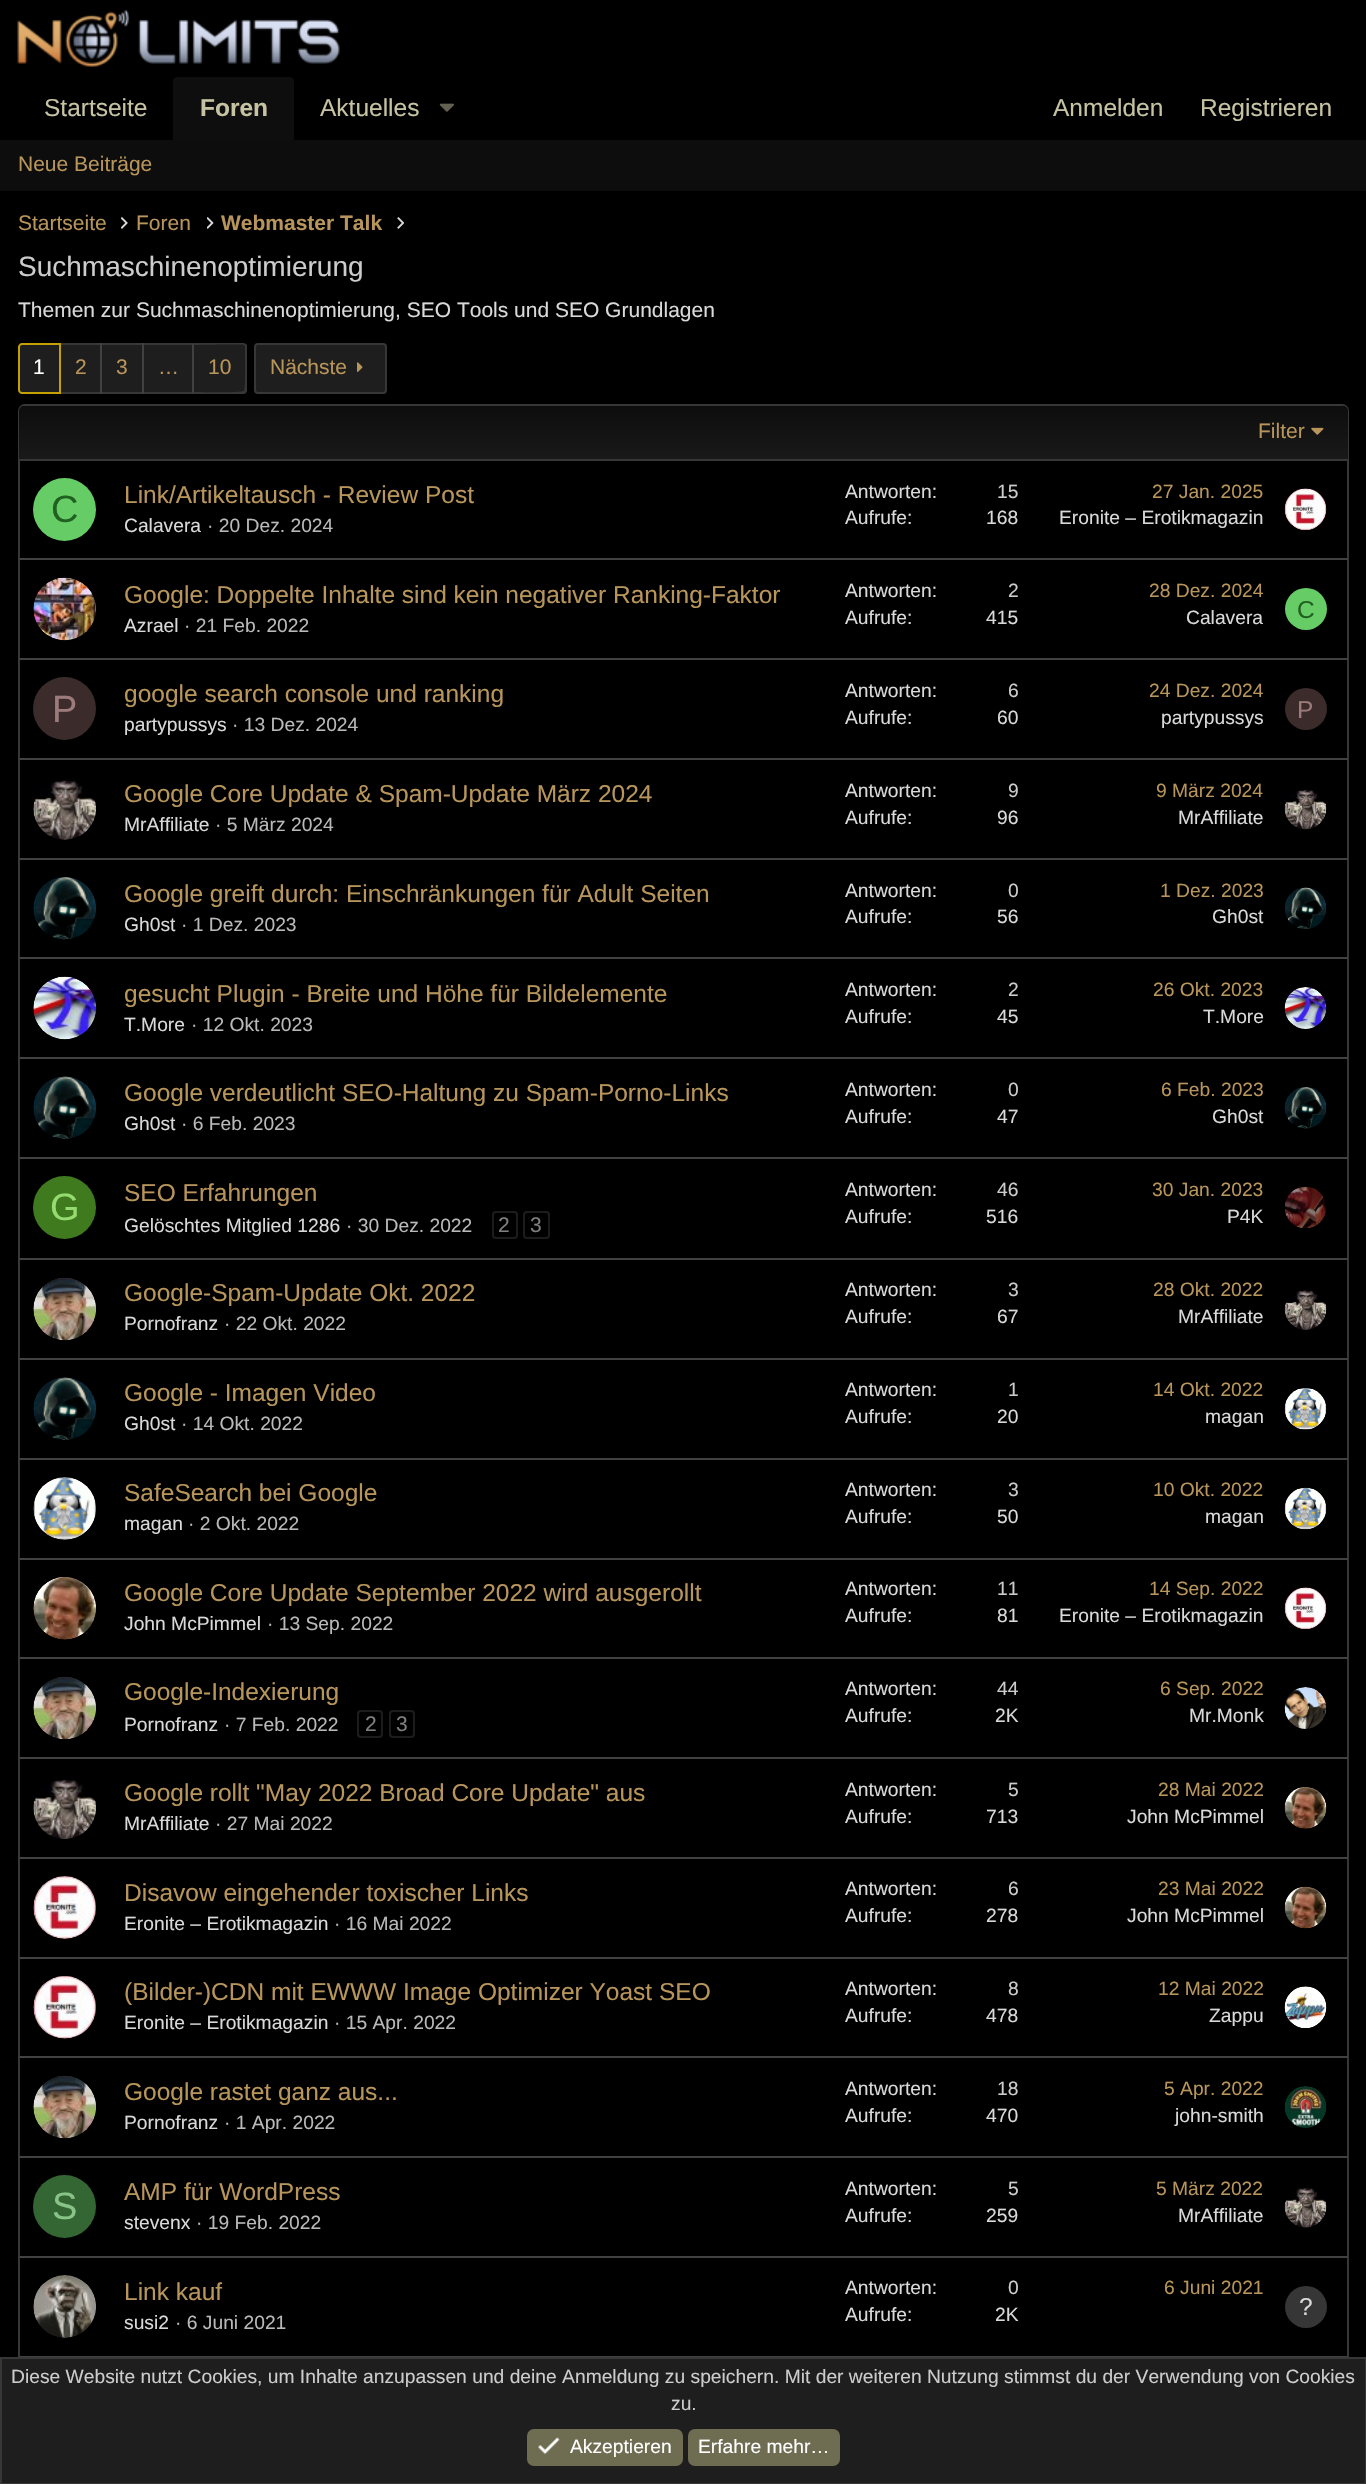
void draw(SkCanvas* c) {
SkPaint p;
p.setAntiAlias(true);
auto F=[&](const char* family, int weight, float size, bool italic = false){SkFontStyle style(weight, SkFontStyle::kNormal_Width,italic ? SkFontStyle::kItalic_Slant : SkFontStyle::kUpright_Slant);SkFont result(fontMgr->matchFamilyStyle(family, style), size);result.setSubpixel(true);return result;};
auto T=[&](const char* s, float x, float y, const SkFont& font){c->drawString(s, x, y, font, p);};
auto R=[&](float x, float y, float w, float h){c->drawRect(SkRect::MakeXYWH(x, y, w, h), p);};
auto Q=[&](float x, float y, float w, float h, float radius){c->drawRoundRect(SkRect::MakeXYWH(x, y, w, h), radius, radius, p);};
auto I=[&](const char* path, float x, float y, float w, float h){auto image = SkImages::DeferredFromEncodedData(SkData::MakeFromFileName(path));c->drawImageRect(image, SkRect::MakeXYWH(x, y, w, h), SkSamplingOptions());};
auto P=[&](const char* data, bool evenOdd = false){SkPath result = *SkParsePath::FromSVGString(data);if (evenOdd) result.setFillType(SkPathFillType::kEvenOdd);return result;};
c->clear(0xff000000);
I("1.png",17,10,323,57);
auto f1 = F("Liberation Sans",400,24.5);
p.setColor(0xffc6c3a2);
T("Startseite",44,116,f1);
p.setColor(0xff0f0e0e);
c->drawPath(P("M177 77h113c2 0 4 2 4 4v59h-121v-59c0-2 2-4 4-4z"),p);
auto f2 = F("Liberation Sans",700,24.5);
p.setColor(0xffc6c3a2);
T("Foren",200,116,f2);
T("Aktuelles",320,116,f1);
I("2.png",439,103,15,9);
T("Anmelden",1053,116,f1);
T("Registrieren",1200,116,f1);
p.setColor(0xff0c0d0c);
R(0,140,1366,51);
auto f3 = F("Liberation Sans",400,21);
p.setColor(0xffb8955a);
T("Neue Beiträge",18,171,f3);
T("Startseite",18,230,f3);
I("3.png",121,217,7,12);
T("Foren",136,230,f3);
I("4.png",207,217,7,12);
auto f4 = F("Liberation Sans",700,21);
T("Webmaster Talk",221,230,f4);
I("5.png",397,217,7,12);
auto f5 = F("Liberation Sans",400,28);
p.setColor(0xffcccccc);
T("Suchmaschinenoptimierung",18,276,f5);
p.setColor(0xffd9d9d9);
T("Themen zur Suchmaschinenoptimierung, SEO Tools und SEO Grundlagen",18,317,f3);
p.setColor(0xff1e1e1e);
c->drawPath(P("M22 344h38v49h-38c-1.5 0-3-1.5-3-3v-43c0-1.5 1.5-3 3-3z"),p);
p.setStroke(true);
p.setStrokeWidth(2);
p.setColor(0xffc4a000);
c->drawPath(P("M22 344h38v49h-38c-1.5 0-3-1.5-3-3v-43c0-1.5 1.5-3 3-3z"),p);
p.setStroke(false);
p.setColor(0xffffffff);
T("1",33,374,f3);
p.setColor(0xff1e1e1e);
R(61,345,39,47);
p.setColor(0xff373737);
R(61,343,132,2);
R(61,392,132,2);
p.setColor(0xffb8955a);
T("2",75,374,f3);
p.setColor(0xff1e1e1e);
R(102,345,40,47);
p.setColor(0xff414141);
R(100,343,2,51);
p.setColor(0xffb8955a);
T("3",116,374,f3);
p.setColor(0xff1e1e1e);
R(144,345,48,47);
p.setColor(0xff414141);
R(142,343,2,51);
p.setColor(0xffb8955a);
T("…",158,374,f3);
p.setColor(0xff1e1e1e);
c->drawPath(P("M193 343h50c2 0 4 2 4 4v43c0 2-2 4-4 4h-50z"),p);
p.setColor(0xff373737);
c->drawPath(P("M192 343l2 2c6 0 48-1 50 0l2-1l-3-1z"),p);
c->drawPath(P("M247 391l-1 2l-2-2c2-1 1-40 1-45l-1-1l2-1l1 1z"),p);
c->drawPath(P("M246 393l-2 1h-52l2-2c6 0 49 1 50-1z"),p);
p.setColor(0xff414141);
c->drawPath(P("M194 345l-2-2v51l2-2z"),p);
p.setColor(0xffb8955a);
T("10",208,374,f3);
p.setColor(0xff1e1e1e);
c->drawRoundRect(SkRect::MakeXYWH(255,344,131,49),3,3,p);
p.setStroke(true);
p.setColor(0xff373737);
c->drawRoundRect(SkRect::MakeXYWH(255,344,131,49),3,3,p);
p.setStroke(false);
p.setColor(0xffb8955a);
T("Nächste",270,374,f3);
I("6.png",357,362,6,10);
p.setStroke(true);
p.setColor(0xff373737);
c->drawRoundRect(SkRect::MakeXYWH(19,405,1329,2051),6,6,p);
p.setStroke(false);
{
const SkColor colors[] = {0xff191919,0xff0d0d0d};
const float stops[] = {0,1};
const SkPoint ends[] = {{683,459}, {683,406}};
p.setShader(SkGradientShader::MakeLinear(ends, colors, stops, 2, SkTileMode::kClamp));
p.setAlpha(255);
}
c->drawPath(P("M24 406h1319c3 0 5 2 5 5v48h-1329v-48c0-3 2-5 5-5z"),p);
p.setShader(nullptr);
p.setColor(0xff373737);
R(19,459,1329,2);
p.setColor(0xffb8955a);
T("Filter",1258,438,f3);
I("7.png",1311,427,13,8);
p.setColor(0xff66cc66);
c->drawCircle(64.5,509.5,31.5,p);
auto f6 = F("Liberation Sans",400,38);
p.setColor(0xff206020);
T("C",51,522,f6);
p.setColor(0xffb8955a);
T("Link/Artikeltausch - Review Post",124,503,f1);
auto f7 = F("Liberation Sans",400,19.25);
p.setColor(0xffd9d9d9);
T("Calavera",124,532,f7);
p.setColor(0xffb9b9b9);
T("· 20 Dez. 2024",207,532,f7);
p.setColor(0xffd9d9d9);
T("Antworten:",845,498,f7);
p.setColor(0xffcccccc);
T("15",997,498,f7);
p.setColor(0xffd9d9d9);
T("Aufrufe:",845,524,f7);
T("168",986,524,f7);
p.setColor(0xffb8955a);
T("27 Jan. 2025",1152,498,f7);
p.setColor(0xffd9d9d9);
T("Eronite – Erotikmagazin",1059,524,f7);
I("8.png",1284,488,43,42);
p.setColor(0xff414141);
R(19,558,1329,2);
I("9.png",33,577,63,64);
p.setColor(0xffb8955a);
T("Google: Doppelte Inhalte sind kein negativer Ranking-Faktor",124,603,f1);
p.setColor(0xffd9d9d9);
T("Azrael",124,632,f7);
p.setColor(0xffb9b9b9);
T("· 21 Feb. 2022",184,632,f7);
p.setColor(0xffd9d9d9);
T("Antworten:",845,597,f7);
p.setColor(0xffcccccc);
T("2",1008,597,f7);
p.setColor(0xffd9d9d9);
T("Aufrufe:",845,624,f7);
T("415",986,624,f7);
p.setColor(0xffb8955a);
T("28 Dez. 2024",1149,597,f7);
p.setColor(0xffd9d9d9);
T("Calavera",1186,624,f7);
p.setColor(0xff66cc66);
c->drawCircle(1306,609,21,p);
p.setColor(0xff206020);
T("C",1297,618,f1);
p.setColor(0xff414141);
R(19,658,1329,2);
p.setColor(0xff3b2b2b);
c->drawCircle(64.5,708.5,31.5,p);
p.setColor(0xff9d7b7b);
T("P",52,722,f6);
p.setColor(0xffb8955a);
T("google search console und ranking",124,702,f1);
p.setColor(0xffd9d9d9);
T("partypussys",124,731,f7);
p.setColor(0xffb9b9b9);
T("· 13 Dez. 2024",232,731,f7);
p.setColor(0xffd9d9d9);
T("Antworten:",845,697,f7);
p.setColor(0xffcccccc);
T("6",1008,697,f7);
p.setColor(0xffd9d9d9);
T("Aufrufe:",845,724,f7);
T("60",997,724,f7);
p.setColor(0xffb8955a);
T("24 Dez. 2024",1149,697,f7);
p.setColor(0xffd9d9d9);
T("partypussys",1161,724,f7);
p.setColor(0xff3b2b2b);
c->drawCircle(1306,709,21,p);
p.setColor(0xff9d7b7b);
T("P",1297,718,f1);
p.setColor(0xff414141);
R(19,758,1329,2);
I("10.png",33,778,63,62);
p.setColor(0xffb8955a);
T("Google Core Update & Spam-Update März 2024",124,802,f1);
p.setColor(0xffd9d9d9);
T("MrAffiliate",124,831,f7);
p.setColor(0xffb9b9b9);
T("· 5 März 2024",215,831,f7);
p.setColor(0xffd9d9d9);
T("Antworten:",845,797,f7);
p.setColor(0xffcccccc);
T("9",1008,797,f7);
p.setColor(0xffd9d9d9);
T("Aufrufe:",845,824,f7);
T("96",997,824,f7);
p.setColor(0xffb8955a);
T("9 März 2024",1156,797,f7);
p.setColor(0xffd9d9d9);
T("MrAffiliate",1178,824,f7);
I("11.png",1284,788,43,42);
p.setColor(0xff414141);
R(19,858,1329,2);
I("12.png",33,877,63,63);
p.setColor(0xffb8955a);
T("Google greift durch: Einschränkungen für Adult Seiten",124,902,f1);
p.setColor(0xffd9d9d9);
T("Gh0st",124,931,f7);
p.setColor(0xffb9b9b9);
T("· 1 Dez. 2023",181,931,f7);
p.setColor(0xffd9d9d9);
T("Antworten:",845,897,f7);
p.setColor(0xffcccccc);
T("0",1008,897,f7);
p.setColor(0xffd9d9d9);
T("Aufrufe:",845,923,f7);
T("56",997,923,f7);
p.setColor(0xffb8955a);
T("1 Dez. 2023",1160,897,f7);
p.setColor(0xffd9d9d9);
T("Gh0st",1212,923,f7);
I("13.png",1284,887,43,42);
p.setColor(0xff414141);
R(19,957,1329,2);
I("14.png",33,976,63,64);
p.setColor(0xffb8955a);
T("gesucht Plugin - Breite und Höhe für Bildelemente",124,1002,f1);
p.setColor(0xffd9d9d9);
T("T.More",124,1031,f7);
p.setColor(0xffb9b9b9);
T("· 12 Okt. 2023",191,1031,f7);
p.setColor(0xffd9d9d9);
T("Antworten:",845,996,f7);
p.setColor(0xffcccccc);
T("2",1008,996,f7);
p.setColor(0xffd9d9d9);
T("Aufrufe:",845,1023,f7);
T("45",997,1023,f7);
p.setColor(0xffb8955a);
T("26 Okt. 2023",1153,996,f7);
p.setColor(0xffd9d9d9);
T("T.More",1203,1023,f7);
I("15.png",1284,987,43,42);
p.setColor(0xff414141);
R(19,1057,1329,2);
I("16.png",33,1076,63,63);
p.setColor(0xffb8955a);
T("Google verdeutlicht SEO-Haltung zu Spam-Porno-Links",124,1101,f1);
p.setColor(0xffd9d9d9);
T("Gh0st",124,1130,f7);
p.setColor(0xffb9b9b9);
T("· 6 Feb. 2023",181,1130,f7);
p.setColor(0xffd9d9d9);
T("Antworten:",845,1096,f7);
p.setColor(0xffcccccc);
T("0",1008,1096,f7);
p.setColor(0xffd9d9d9);
T("Aufrufe:",845,1123,f7);
T("47",997,1123,f7);
p.setColor(0xffb8955a);
T("6 Feb. 2023",1161,1096,f7);
p.setColor(0xffd9d9d9);
T("Gh0st",1212,1123,f7);
I("17.png",1284,1087,43,42);
p.setColor(0xff414141);
R(19,1157,1329,2);
p.setColor(0xff3f7a1f);
c->drawCircle(64.5,1207.5,31.5,p);
p.setColor(0xff96db70);
T("G",50,1220,f6);
p.setColor(0xffb8955a);
T("SEO Erfahrungen",124,1201,f1);
p.setColor(0xffd9d9d9);
T("Gelöschtes Mitglied 1286",124,1232,f7);
p.setColor(0xffb9b9b9);
T("· 30 Dez. 2022",346,1232,f7);
p.setStroke(true);
p.setColor(0xff1c1c1c);
c->drawRoundRect(SkRect::MakeXYWH(493,1212,24,26),3,3,p);
p.setStroke(false);
p.setColor(0xff808080);
T("2",498,1232,f3);
p.setStroke(true);
p.setColor(0xff1c1c1c);
c->drawRoundRect(SkRect::MakeXYWH(524,1212,25,26),3,3,p);
p.setStroke(false);
p.setColor(0xff808080);
T("3",530,1232,f3);
p.setColor(0xffd9d9d9);
T("Antworten:",845,1196,f7);
p.setColor(0xffcccccc);
T("46",997,1196,f7);
p.setColor(0xffd9d9d9);
T("Aufrufe:",845,1223,f7);
T("516",986,1223,f7);
p.setColor(0xffb8955a);
T("30 Jan. 2023",1152,1196,f7);
p.setColor(0xffd9d9d9);
T("P4K",1227,1223,f7);
I("18.png",1285,1186,41,43);
p.setColor(0xff414141);
R(19,1258,1329,2);
I("19.png",33,1277,63,64);
p.setColor(0xffb8955a);
T("Google-Spam-Update Okt. 2022",124,1301,f1);
p.setColor(0xffd9d9d9);
T("Pornofranz",124,1330,f7);
p.setColor(0xffb9b9b9);
T("· 22 Okt. 2022",224,1330,f7);
p.setColor(0xffd9d9d9);
T("Antworten:",845,1296,f7);
p.setColor(0xffcccccc);
T("3",1008,1296,f7);
p.setColor(0xffd9d9d9);
T("Aufrufe:",845,1323,f7);
T("67",997,1323,f7);
p.setColor(0xffb8955a);
T("28 Okt. 2022",1153,1296,f7);
p.setColor(0xffd9d9d9);
T("MrAffiliate",1178,1323,f7);
I("20.png",1284,1289,43,41);
p.setColor(0xff414141);
R(19,1358,1329,2);
I("16.png",33,1377,63,63);
p.setColor(0xffb8955a);
T("Google - Imagen Video",124,1401,f1);
p.setColor(0xffd9d9d9);
T("Gh0st",124,1430,f7);
p.setColor(0xffb9b9b9);
T("· 14 Okt. 2022",181,1430,f7);
p.setColor(0xffd9d9d9);
T("Antworten:",845,1396,f7);
p.setColor(0xffcccccc);
T("1",1008,1396,f7);
p.setColor(0xffd9d9d9);
T("Aufrufe:",845,1423,f7);
T("20",997,1423,f7);
p.setColor(0xffb8955a);
T("14 Okt. 2022",1153,1396,f7);
p.setColor(0xffd9d9d9);
T("magan",1205,1423,f7);
I("21.png",1284,1388,43,42);
p.setColor(0xff414141);
R(19,1458,1329,2);
I("22.png",33,1477,63,63);
p.setColor(0xffb8955a);
T("SafeSearch bei Google",124,1501,f1);
p.setColor(0xffd9d9d9);
T("magan",124,1530,f7);
p.setColor(0xffb9b9b9);
T("· 2 Okt. 2022",188,1530,f7);
p.setColor(0xffd9d9d9);
T("Antworten:",845,1496,f7);
p.setColor(0xffcccccc);
T("3",1008,1496,f7);
p.setColor(0xffd9d9d9);
T("Aufrufe:",845,1523,f7);
T("50",997,1523,f7);
p.setColor(0xffb8955a);
T("10 Okt. 2022",1153,1496,f7);
p.setColor(0xffd9d9d9);
T("magan",1205,1523,f7);
I("23.png",1284,1487,43,43);
p.setColor(0xff414141);
R(19,1558,1329,2);
I("24.png",33,1577,63,63);
p.setColor(0xffb8955a);
T("Google Core Update September 2022 wird ausgerollt",124,1601,f1);
p.setColor(0xffd9d9d9);
T("John McPimmel",124,1630,f7);
p.setColor(0xffb9b9b9);
T("· 13 Sep. 2022",267,1630,f7);
p.setColor(0xffd9d9d9);
T("Antworten:",845,1595,f7);
p.setColor(0xffcccccc);
T("11",997,1595,f7);
p.setColor(0xffd9d9d9);
T("Aufrufe:",845,1622,f7);
T("81",997,1622,f7);
p.setColor(0xffb8955a);
T("14 Sep. 2022",1149,1595,f7);
p.setColor(0xffd9d9d9);
T("Eronite – Erotikmagazin",1059,1622,f7);
I("25.png",1284,1587,43,42);
p.setColor(0xff414141);
R(19,1657,1329,2);
I("19.png",33,1676,63,64);
p.setColor(0xffb8955a);
T("Google-Indexierung",124,1700,f1);
p.setColor(0xffd9d9d9);
T("Pornofranz",124,1731,f7);
p.setColor(0xffb9b9b9);
T("· 7 Feb. 2022",224,1731,f7);
p.setStroke(true);
p.setColor(0xff1c1c1c);
c->drawRoundRect(SkRect::MakeXYWH(358,1711,24,26),3,3,p);
p.setStroke(false);
p.setColor(0xff808080);
T("2",365,1731,f3);
p.setStroke(true);
p.setColor(0xff1c1c1c);
c->drawRoundRect(SkRect::MakeXYWH(390,1711,24,26),3,3,p);
p.setStroke(false);
p.setColor(0xff808080);
T("3",396,1731,f3);
p.setColor(0xffd9d9d9);
T("Antworten:",845,1695,f7);
p.setColor(0xffcccccc);
T("44",997,1695,f7);
p.setColor(0xffd9d9d9);
T("Aufrufe:",845,1722,f7);
T("2K",995,1722,f7);
p.setColor(0xffb8955a);
T("6 Sep. 2022",1160,1695,f7);
p.setColor(0xffd9d9d9);
T("Mr.Monk",1189,1722,f7);
I("26.png",1284,1687,43,42);
p.setColor(0xff414141);
R(19,1757,1329,2);
I("27.png",33,1778,63,61);
p.setColor(0xffb8955a);
T("Google rollt \"May 2022 Broad Core Update\" aus",124,1801,f1);
p.setColor(0xffd9d9d9);
T("MrAffiliate",124,1830,f7);
p.setColor(0xffb9b9b9);
T("· 27 Mai 2022",215,1830,f7);
p.setColor(0xffd9d9d9);
T("Antworten:",845,1796,f7);
p.setColor(0xffcccccc);
T("5",1008,1796,f7);
p.setColor(0xffd9d9d9);
T("Aufrufe:",845,1823,f7);
T("713",986,1823,f7);
p.setColor(0xffb8955a);
T("28 Mai 2022",1158,1796,f7);
p.setColor(0xffd9d9d9);
T("John McPimmel",1127,1823,f7);
I("28.png",1284,1787,43,42);
p.setColor(0xff414141);
R(19,1857,1329,2);
I("29.png",33,1876,63,63);
p.setColor(0xffb8955a);
T("Disavow eingehender toxischer Links",124,1901,f1);
p.setColor(0xffd9d9d9);
T("Eronite – Erotikmagazin",124,1930,f7);
p.setColor(0xffb9b9b9);
T("· 16 Mai 2022",334,1930,f7);
p.setColor(0xffd9d9d9);
T("Antworten:",845,1895,f7);
p.setColor(0xffcccccc);
T("6",1008,1895,f7);
p.setColor(0xffd9d9d9);
T("Aufrufe:",845,1922,f7);
T("278",986,1922,f7);
p.setColor(0xffb8955a);
T("23 Mai 2022",1158,1895,f7);
p.setColor(0xffd9d9d9);
T("John McPimmel",1127,1922,f7);
I("30.png",1284,1886,43,43);
p.setColor(0xff414141);
R(19,1957,1329,2);
I("31.png",33,1976,63,63);
p.setColor(0xffb8955a);
T("(Bilder-)CDN mit EWWW Image Optimizer Yoast SEO",124,2000,f1);
p.setColor(0xffd9d9d9);
T("Eronite – Erotikmagazin",124,2029,f7);
p.setColor(0xffb9b9b9);
T("· 15 Apr. 2022",334,2029,f7);
p.setColor(0xffd9d9d9);
T("Antworten:",845,1995,f7);
p.setColor(0xffcccccc);
T("8",1008,1995,f7);
p.setColor(0xffd9d9d9);
T("Aufrufe:",845,2022,f7);
T("478",986,2022,f7);
p.setColor(0xffb8955a);
T("12 Mai 2022",1158,1995,f7);
p.setColor(0xffd9d9d9);
T("Zappu",1209,2022,f7);
I("32.png",1284,1986,43,42);
p.setColor(0xff414141);
R(19,2056,1329,2);
I("19.png",33,2075,63,64);
p.setColor(0xffb8955a);
T("Google rastet ganz aus...",124,2100,f1);
p.setColor(0xffd9d9d9);
T("Pornofranz",124,2129,f7);
p.setColor(0xffb9b9b9);
T("· 1 Apr. 2022",224,2129,f7);
p.setColor(0xffd9d9d9);
T("Antworten:",845,2095,f7);
p.setColor(0xffcccccc);
T("18",997,2095,f7);
p.setColor(0xffd9d9d9);
T("Aufrufe:",845,2122,f7);
T("470",986,2122,f7);
p.setColor(0xffb8955a);
T("5 Apr. 2022",1164,2095,f7);
p.setColor(0xffd9d9d9);
T("john-smith",1175,2122,f7);
I("33.png",1284,2086,43,42);
p.setColor(0xff414141);
R(19,2156,1329,2);
p.setColor(0xff336633);
c->drawCircle(64.5,2206.5,31.5,p);
p.setColor(0xff88c388);
T("S",52,2219,f6);
p.setColor(0xffb8955a);
T("AMP für WordPress",124,2200,f1);
p.setColor(0xffd9d9d9);
T("stevenx",124,2229,f7);
p.setColor(0xffb9b9b9);
T("· 19 Feb. 2022",196,2229,f7);
p.setColor(0xffd9d9d9);
T("Antworten:",845,2195,f7);
p.setColor(0xffcccccc);
T("5",1008,2195,f7);
p.setColor(0xffd9d9d9);
T("Aufrufe:",845,2222,f7);
T("259",986,2222,f7);
p.setColor(0xffb8955a);
T("5 März 2022",1156,2195,f7);
p.setColor(0xffd9d9d9);
T("MrAffiliate",1178,2222,f7);
I("34.png",1284,2188,43,40);
p.setColor(0xff414141);
R(19,2256,1329,2);
I("35.png",33,2275,63,63);
p.setColor(0xffb8955a);
T("Link kauf",124,2300,f1);
p.setColor(0xffd9d9d9);
T("susi2",124,2329,f7);
p.setColor(0xffb9b9b9);
T("· 6 Juni 2021",175,2329,f7);
p.setColor(0xffd9d9d9);
T("Antworten:",845,2294,f7);
p.setColor(0xffcccccc);
T("0",1008,2294,f7);
p.setColor(0xffd9d9d9);
T("Aufrufe:",845,2321,f7);
T("2K",995,2321,f7);
p.setColor(0xffb8955a);
T("6 Juni 2021",1164,2294,f7);
p.setColor(0xff363636);
c->drawCircle(1306,2307,21,p);
p.setColor(0xffd9d9d9);
T("?",1299,2315,f1);
p.setColor(0xff414141);
R(19,2356,1329,1);
p.setColor(0xff1e1e1e);
c->drawRect(SkRect::MakeXYWH(1,2358,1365,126),p);
p.setStroke(true);
p.setColor(0xff373737);
c->drawRect(SkRect::MakeXYWH(1,2358,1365,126),p);
p.setStroke(false);
p.setColor(0xffcccccc);
T("Diese Website nutzt Cookies, um Inhalte anzupassen und deine Anmeldung zu speichern. Mit der weiteren Nutzung stimmst du der Verwendung von Cookies",11,2383,f7);
T("zu.",671,2410,f7);
p.setColor(0xff6e6d52);
Q(527,2429,156,37,7);
I("36.png",538,2437,22,18);
p.setColor(0xffffffff);
T("Akzeptieren",570,2453,f7);
p.setColor(0xff6e6d52);
Q(688,2429,152,37,7);
p.setColor(0xffffffff);
T("Erfahre mehr…",698,2453,f7);
}
